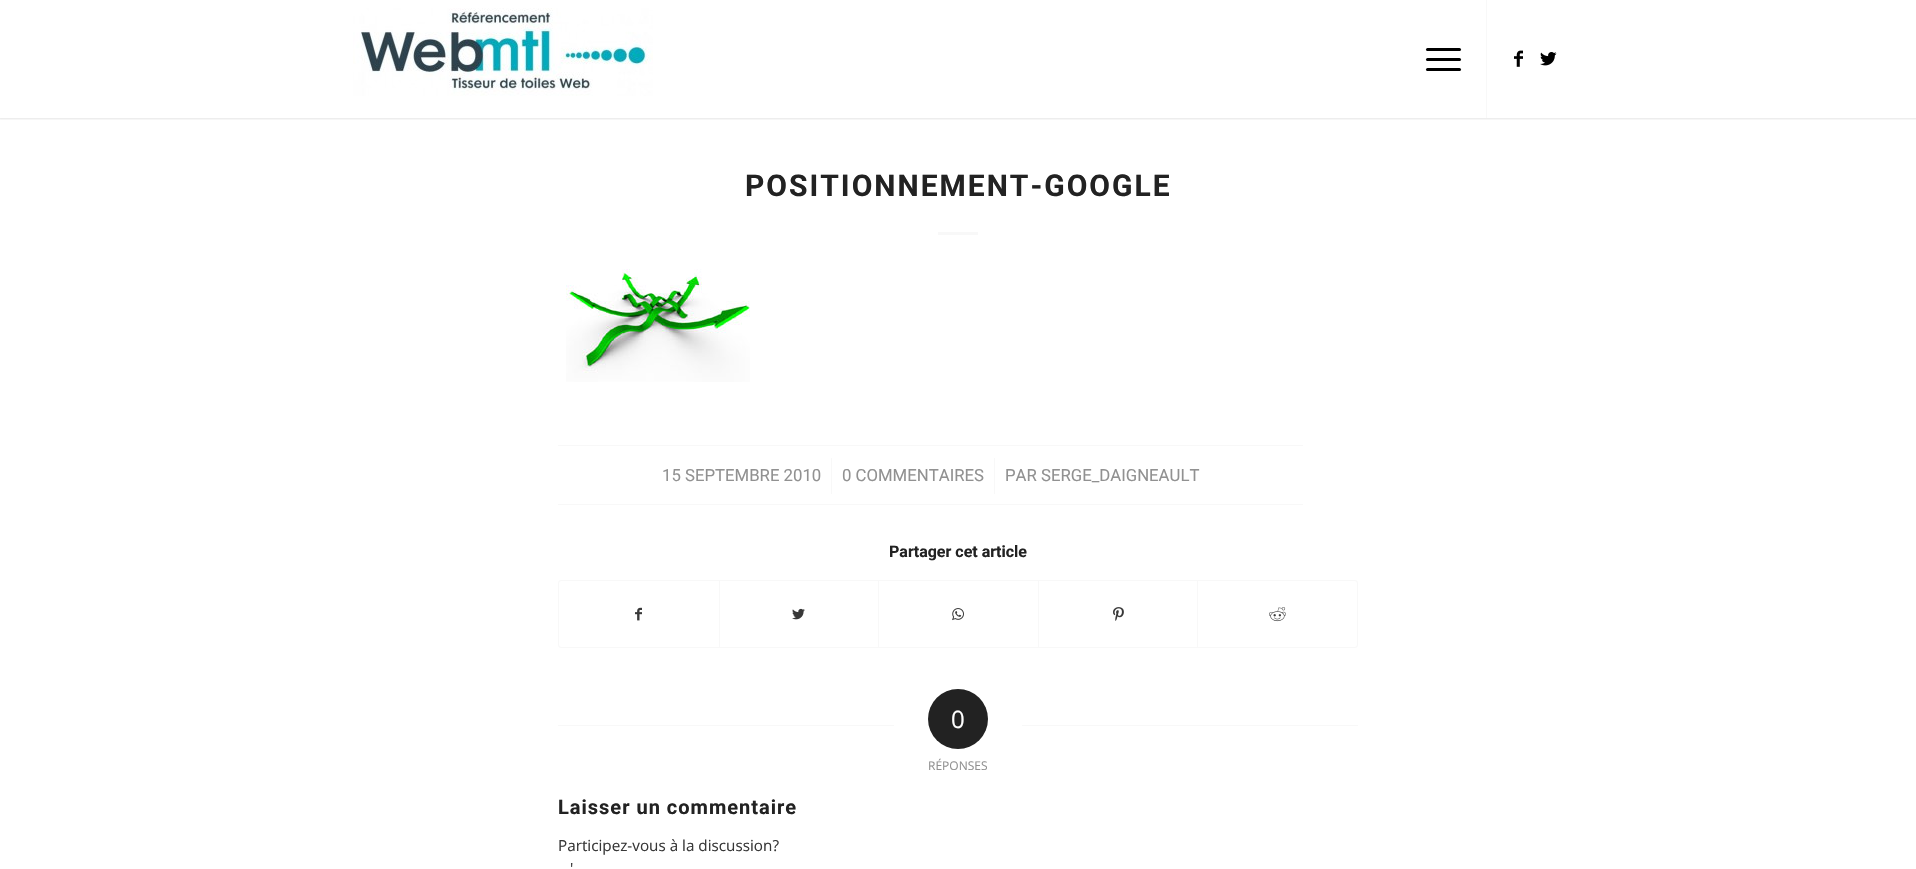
void draw(SkCanvas* c) {
SkPaint p;
p.setAntiAlias(true);
auto F=[&](const char* family, int weight, float size, bool italic = false){SkFontStyle style(weight, SkFontStyle::kNormal_Width,italic ? SkFontStyle::kItalic_Slant : SkFontStyle::kUpright_Slant);SkFont result(fontMgr->matchFamilyStyle(family, style), size);result.setSubpixel(true);return result;};
auto T=[&](const char* s, float x, float y, const SkFont& font){c->drawString(s, x, y, font, p);};
auto L=[&](const char* s, float x, float y, const SkFont& font, const SkPaint& ink, float letter, float word){std::vector<SkGlyphID> glyphs(font.countText(s, strlen(s), SkTextEncoding::kUTF8));std::vector<float> xs(glyphs.size());font.textToGlyphs(s, strlen(s), SkTextEncoding::kUTF8, glyphs);font.getXPos(glyphs, xs, x);float extra = 0;for (size_t i = 0; i < glyphs.size(); i++) {xs[i] += extra;extra += letter + word * (glyphs[i] == font.unicharToGlyph(' '));}c->drawTextBlob(SkTextBlob::MakeFromPosHGlyphs(glyphs, xs, y, font), 0, 0, ink);};
auto R=[&](float x, float y, float w, float h){c->drawRect(SkRect::MakeXYWH(x, y, w, h), p);};
auto Q=[&](float x, float y, float w, float h, float radius){c->drawRoundRect(SkRect::MakeXYWH(x, y, w, h), radius, radius, p);};
auto I=[&](const char* path, float x, float y, float w, float h){auto image = SkImages::DeferredFromEncodedData(SkData::MakeFromFileName(path));c->drawImageRect(image, SkRect::MakeXYWH(x, y, w, h), SkSamplingOptions());};
c->clear(0xffffffff);
c->save();
c->clipRect(SkRect::MakeXYWH(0,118,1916,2));
p.setColor(0x1a000000);
p.setMaskFilter(SkMaskFilter::MakeBlur(kNormal_SkBlurStyle, 1));
c->drawRect(SkRect::MakeXYWH(-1,-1,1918,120),p);
p.setMaskFilter(nullptr);
c->restore();
I("1.png",353,8,300,88);
p.setColor(0xfff8f8f8);
R(1486,0,1,118);
p.setColor(0xff000000);
Q(1426,58,35,3,1.5);
Q(1426,48,35,3,1.5);
Q(1426,68,35,3,1.5);
I("2.png",1514,50,9,17);
I("3.png",1540,52,17,14);
auto f1 = F("Roboto",700,30);
p.setColor(0xff222222);
L("POSITIONNEMENT-GOOGLE",745,196,f1,p,2,0);
p.setColor(0xfff8f8f8);
R(938,232,40,3);
I("4.png",566,269,184,113);
R(558,445,745,1);
R(558,504,745,1);
auto f2 = F("Roboto",400,16.75);
p.setColor(0xff919191);
T("15 SEPTEMBRE 2010",662,481,f2);
p.setColor(0xfff8f8f8);
R(831,458,1,36);
p.setColor(0xff919191);
T("0 COMMENTAIRES",842,481,f2);
p.setColor(0xfff8f8f8);
R(994,458,1,36);
p.setColor(0xff919191);
T("PAR SERGE_DAIGNEAULT",1005,481,f2);
auto f3 = F("Roboto",700,16);
p.setColor(0xff222222);
T("Partager cet article",889,557,f3);
p.setStroke(true);
p.setStrokeWidth(1);
p.setColor(0xfff8f8f8);
c->drawRoundRect(SkRect::MakeXYWH(558.5,580.5,799,67),2.5,2.5,p);
I("5.png",635,607,7,14);
p.setStroke(false);
R(719,581,1,66);
I("6.png",792,608,13,12);
R(878,581,1,66);
I("7.png",952,608,12,13);
R(1038,581,1,66);
I("8.png",1113,607,11,14);
R(1197,581,1,66);
I("9.png",1269,607,17,15);
R(558,725,336,1);
p.setColor(0xff222222);
c->drawCircle(958,719,30,p);
auto f4 = F("Open Sans",400,24);
p.setColor(0xffffffff);
T("0",951,728,f4);
p.setColor(0xfff8f8f8);
R(1022,725,336,1);
auto f5 = F("Open Sans",400,12);
p.setColor(0xff919191);
T("RÉPONSES",928,770,f5);
auto f6 = F("Roboto",700,20);
p.setColor(0xff222222);
L("Laisser un commentaire",558,814,f6,p,1,0);
auto f7 = F("Open Sans",400,15.25);
p.setColor(0xff383838);
T("Participez-vous à la discussion?",558,851,f7);
T("'",570,874,f7);
}
